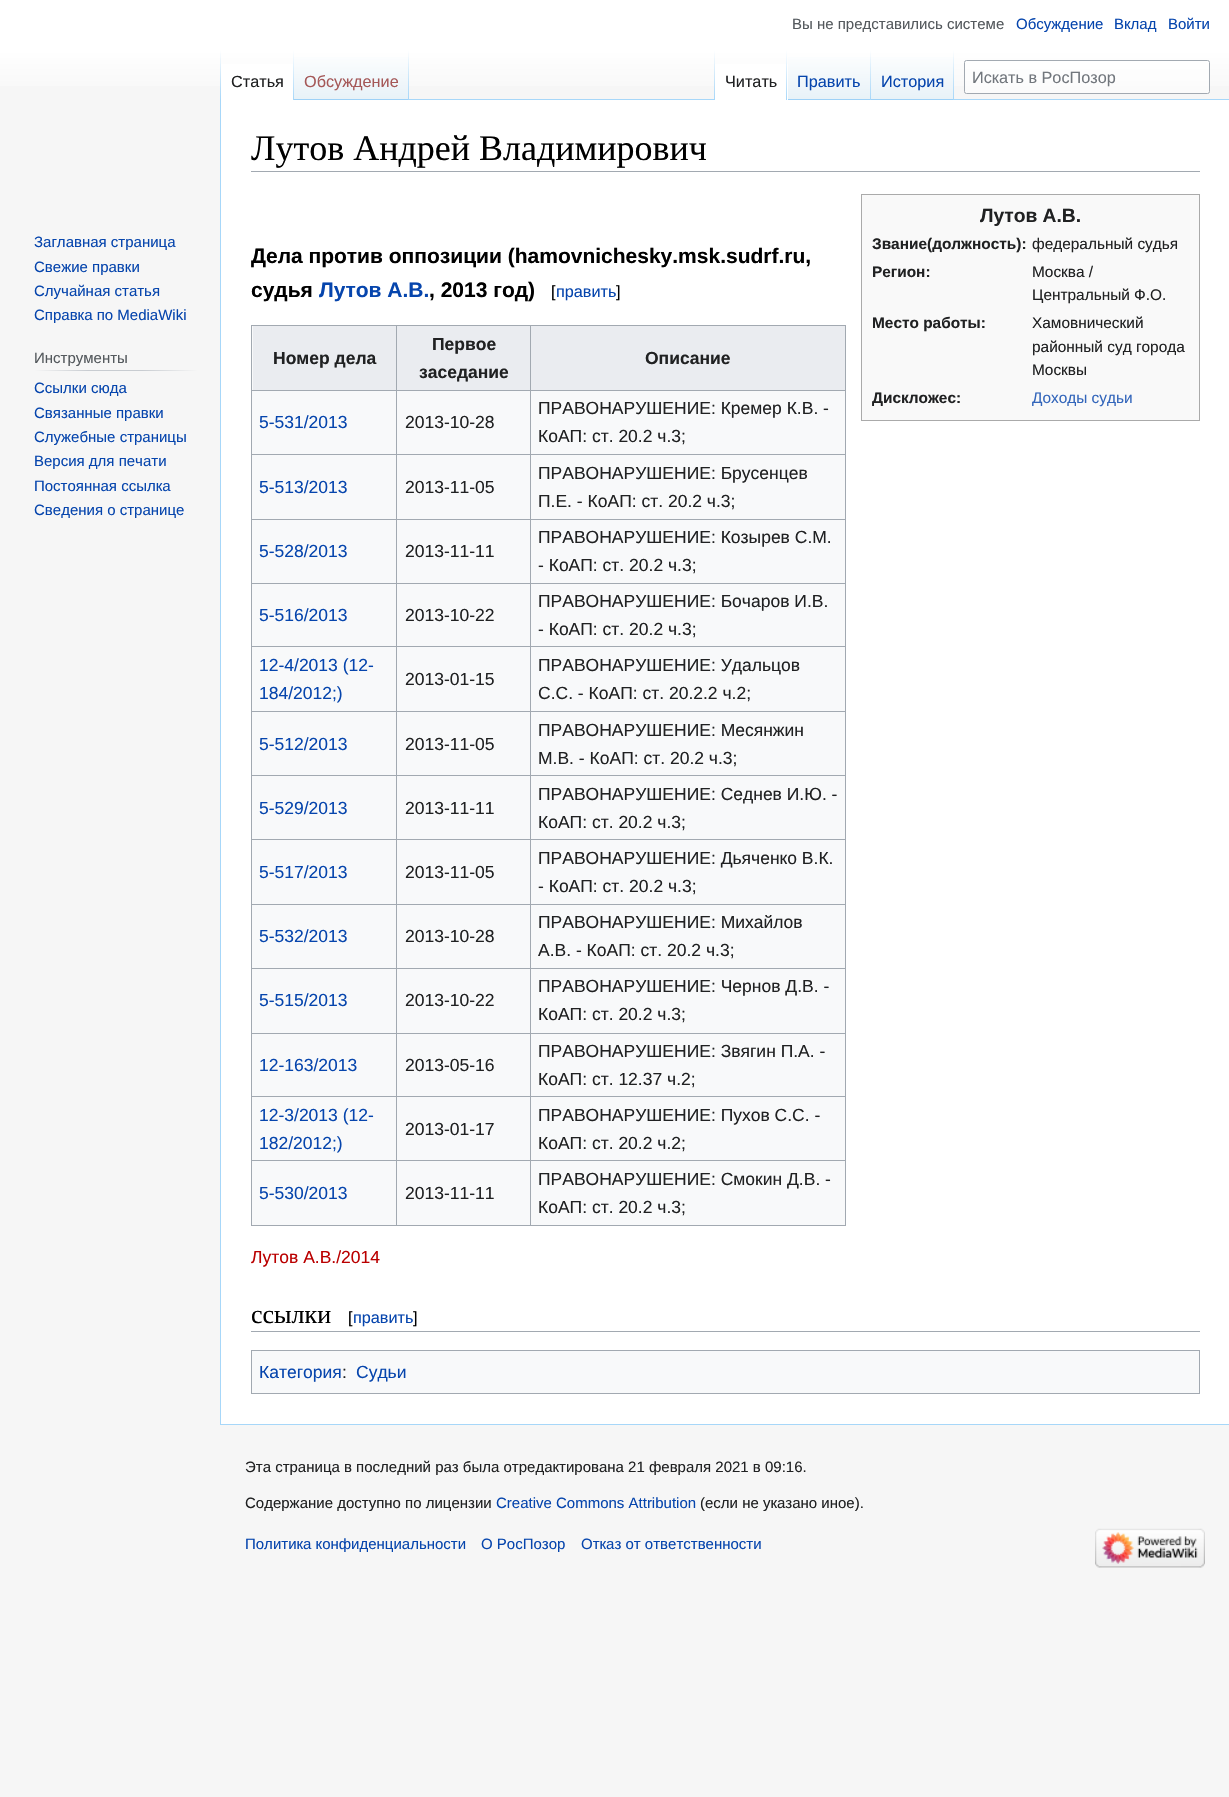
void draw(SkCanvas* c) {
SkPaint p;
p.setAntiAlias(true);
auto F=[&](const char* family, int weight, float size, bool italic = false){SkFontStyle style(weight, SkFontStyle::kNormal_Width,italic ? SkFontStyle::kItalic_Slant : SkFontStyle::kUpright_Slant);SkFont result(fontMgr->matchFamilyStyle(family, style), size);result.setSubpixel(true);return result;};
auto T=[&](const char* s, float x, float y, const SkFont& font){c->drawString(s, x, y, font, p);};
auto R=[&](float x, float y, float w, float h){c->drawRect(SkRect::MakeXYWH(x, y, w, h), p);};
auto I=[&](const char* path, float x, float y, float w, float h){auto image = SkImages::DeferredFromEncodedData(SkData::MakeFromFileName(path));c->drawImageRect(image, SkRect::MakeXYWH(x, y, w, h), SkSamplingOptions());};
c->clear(0xfff6f6f6);
{
const SkColor colors[] = {0xffffffff,0xfff6f6f6};
const float stops[] = {.5,1};
const SkPoint ends[] = {{615,0}, {615,100}};
p.setShader(SkGradientShader::MakeLinear(ends, colors, stops, 2, SkTileMode::kClamp));
p.setAlpha(255);
}
R(0,0,1229,86);
auto f1 = F("Liberation Sans",400,15);
p.setShader(nullptr);
p.setColor(0xff54595d);
T("Вы не представились системе",792,29,f1);
p.setColor(0xff0645ad);
T("Обсуждение",1016,29,f1);
T("Вклад",1114,29,f1);
T("Войти",1168,29,f1);
p.setColor(0xffa7d7f9);
R(220,1424,1009,1);
R(220,99,1,1326);
{
const SkColor colors[] = {0x00a7d7f9,0xffa7d7f9};
const float stops[] = {0,1};
const SkPoint ends[] = {{221,50}, {221,100}};
p.setShader(SkGradientShader::MakeLinear(ends, colors, stops, 2, SkTileMode::kClamp));
p.setAlpha(255);
}
R(220,50,1,50);
p.setShader(nullptr);
p.setColor(0xffffffff);
R(221,64,72,36);
{
const SkColor colors[] = {0xffffffff,0xffa7d7f9};
const float stops[] = {0,1};
const SkPoint ends[] = {{293,50}, {293,100}};
p.setShader(SkGradientShader::MakeLinear(ends, colors, stops, 2, SkTileMode::kClamp));
p.setAlpha(255);
}
R(293,50,1,50);
auto f2 = F("Liberation Sans",400,16.25);
p.setShader(nullptr);
p.setColor(0xff202122);
T("Статья",231,87,f2);
{
const SkColor colors[] = {0xff77c1f6,0xffe8f2f8,0xffffffff};
const float stops[] = {0,.03,1};
const SkPoint ends[] = {{351,100}, {351,50}};
p.setShader(SkGradientShader::MakeLinear(ends, colors, stops, 3, SkTileMode::kClamp));
p.setAlpha(255);
}
R(294,57,115,43);
{
const SkColor colors[] = {0x00a7d7f9,0xffa7d7f9};
const float stops[] = {0,1};
const SkPoint ends[] = {{408,50}, {408,100}};
p.setShader(SkGradientShader::MakeLinear(ends, colors, stops, 2, SkTileMode::kClamp));
p.setAlpha(255);
}
R(408,50,1,50);
p.setShader(nullptr);
p.setColor(0xffa55858);
T("Обсуждение",304,87,f2);
p.setColor(0xffa7d7f9);
R(409,99,820,1);
{
const SkColor colors[] = {0x00a7d7f9,0xffa7d7f9};
const float stops[] = {0,1};
const SkPoint ends[] = {{714,50}, {714,100}};
p.setShader(SkGradientShader::MakeLinear(ends, colors, stops, 2, SkTileMode::kClamp));
p.setAlpha(255);
}
R(714,50,1,50);
p.setShader(nullptr);
p.setColor(0xffffffff);
R(715,64,73,36);
{
const SkColor colors[] = {0xffffffff,0xffa7d7f9};
const float stops[] = {0,1};
const SkPoint ends[] = {{787,50}, {787,100}};
p.setShader(SkGradientShader::MakeLinear(ends, colors, stops, 2, SkTileMode::kClamp));
p.setAlpha(255);
}
R(786,50,1,50);
p.setShader(nullptr);
p.setColor(0xff202122);
T("Читать",725,87,f2);
{
const SkColor colors[] = {0xff77c1f6,0xffe8f2f8,0xffffffff};
const float stops[] = {0,.03,1};
const SkPoint ends[] = {{829,100}, {829,50}};
p.setShader(SkGradientShader::MakeLinear(ends, colors, stops, 3, SkTileMode::kClamp));
p.setAlpha(255);
}
R(788,57,83,43);
{
const SkColor colors[] = {0x00a7d7f9,0xffa7d7f9};
const float stops[] = {0,1};
const SkPoint ends[] = {{871,50}, {871,100}};
p.setShader(SkGradientShader::MakeLinear(ends, colors, stops, 2, SkTileMode::kClamp));
p.setAlpha(255);
}
R(870,50,1,50);
p.setShader(nullptr);
p.setColor(0xff0645ad);
T("Править",797,87,f2);
{
const SkColor colors[] = {0xff77c1f6,0xffe8f2f8,0xffffffff};
const float stops[] = {0,.03,1};
const SkPoint ends[] = {{913,100}, {913,50}};
p.setShader(SkGradientShader::MakeLinear(ends, colors, stops, 3, SkTileMode::kClamp));
p.setAlpha(255);
}
R(871,57,83,43);
{
const SkColor colors[] = {0x00a7d7f9,0xffa7d7f9};
const float stops[] = {0,1};
const SkPoint ends[] = {{953,50}, {953,100}};
p.setShader(SkGradientShader::MakeLinear(ends, colors, stops, 2, SkTileMode::kClamp));
p.setAlpha(255);
}
R(953,50,1,50);
p.setShader(nullptr);
p.setColor(0xff0645ad);
T("История",881,87,f2);
p.setColor(0x80ffffff);
c->drawRoundRect(SkRect::MakeXYWH(964.5,60.5,245,33),2,2,p);
p.setStroke(true);
p.setStrokeWidth(1);
p.setColor(0xffa2a9b1);
c->drawRoundRect(SkRect::MakeXYWH(964.5,60.5,245,33),2,2,p);
p.setStroke(false);
p.setColor(0xff72777d);
T("Искать в РосПозор",972,83,f2);
p.setColor(0xff0645ad);
T("Заглавная страница",34,247,f1);
T("Свежие правки",34,272,f1);
T("Случайная статья",34,296,f1);
T("Справка по MediaWiki",34,320,f1);
{
const SkColor colors[] = {0xfff6f6f6,0xffc8ccd1,0xffc8ccd1,0xfff6f6f6};
const float stops[] = {0,.33,.66,1};
const SkPoint ends[] = {{34,371}, {198,371}};
p.setShader(SkGradientShader::MakeLinear(ends, colors, stops, 4, SkTileMode::kClamp));
p.setAlpha(255);
}
R(34,370,164,1);
p.setShader(nullptr);
p.setColor(0xff54595d);
T("Инструменты",34,363,f1);
p.setColor(0xff0645ad);
T("Ссылки сюда",34,393,f1);
T("Связанные правки",34,418,f1);
T("Служебные страницы",34,442,f1);
T("Версия для печати",34,466,f1);
T("Постоянная ссылка",34,491,f1);
T("Сведения о странице",34,515,f1);
p.setColor(0xffffffff);
R(221,100,1008,1324);
p.setColor(0xffa2a9b1);
R(251,171,949,1);
auto f3 = F("Liberation Serif",400,36);
p.setColor(0xff000000);
T("Лутов Андрей Владимирович",251,160,f3);
auto f4 = F("Liberation Sans",700,21);
T("Дела против оппозиции (hamovnichesky.msk.sudrf.ru,",251,263,f4);
T("судья",251,297,f4);
p.setColor(0xff0645ad);
T("Лутов А.В.",319,297,f4);
p.setColor(0xff000000);
T(", 2013 год)",429,297,f4);
T("[",551,297,f2);
p.setColor(0xff0645ad);
T("править",556,297,f2);
p.setColor(0xff000000);
T("]",616,297,f2);
p.setColor(0xfff9f9f9);
c->drawRect(SkRect::MakeXYWH(861.5,194.5,338,226),p);
p.setStroke(true);
p.setColor(0xffaaaaaa);
c->drawRect(SkRect::MakeXYWH(861.5,194.5,338,226),p);
auto f5 = F("Liberation Sans",700,19.25);
p.setStroke(false);
p.setColor(0xff202122);
T("Лутов А.В.",980,222,f5);
auto f6 = F("Liberation Sans",700,15.4);
T("Звание(должность):",872,249,f6);
auto f7 = F("Liberation Sans",400,15.4);
T("федеральный судья",1032,249,f7);
T("Регион:",872,277,f6);
T("Москва /",1032,277,f7);
T("Центральный Ф.О.",1032,300,f7);
T("Место работы:",872,328,f6);
T("Хамовнический",1032,328,f7);
T("районный суд города",1032,352,f7);
T("Москвы",1032,375,f7);
T("Дискложес:",872,403,f6);
p.setColor(0xff3366bb);
T("Доходы судьи",1032,403,f7);
p.setColor(0xfff8f9fa);
R(252,326,593,899);
p.setColor(0xffa2a9b1);
R(251,325,595,1);
R(845,325,1,901);
R(251,1225,595,1);
R(251,325,1,901);
p.setColor(0xffeaecf0);
R(253,326,277,64);
auto f8 = F("Liberation Sans",700,17.5);
p.setColor(0xff202122);
T("Номер дела",273,364,f8);
p.setColor(0xffa2a9b1);
R(530,390,316,1);
R(530,454,316,1);
R(530,519,316,1);
R(530,583,316,1);
R(530,646,316,1);
R(530,711,316,1);
R(530,775,316,1);
R(530,839,316,1);
R(530,904,316,1);
R(530,968,316,1);
R(530,1033,316,1);
R(530,1096,316,1);
R(530,1160,316,1);
R(530,1160,1,66);
R(396,1160,135,1);
R(530,1096,1,65);
R(396,1096,135,1);
R(530,1033,1,65);
R(396,1033,135,1);
R(530,968,1,66);
R(396,968,135,1);
R(530,904,1,65);
R(396,904,135,1);
R(530,839,1,66);
R(396,839,135,1);
R(530,775,1,65);
R(396,775,135,1);
R(530,711,1,65);
R(396,711,135,1);
R(530,646,1,67);
R(396,646,135,1);
R(530,583,1,65);
R(396,583,135,1);
R(530,519,1,65);
R(396,519,135,1);
R(530,454,1,66);
R(396,454,135,1);
R(530,390,1,65);
R(396,390,135,1);
R(396,1160,1,66);
R(251,1160,147,1);
R(396,1096,1,65);
R(251,1096,147,1);
R(396,1033,1,65);
R(251,1033,147,1);
R(396,968,1,66);
R(251,968,147,1);
R(396,904,1,65);
R(251,904,147,1);
R(396,839,1,66);
R(251,839,147,1);
R(396,775,1,65);
R(251,775,147,1);
R(396,711,1,65);
R(251,711,147,1);
R(396,646,1,67);
R(251,646,147,1);
R(396,583,1,65);
R(251,583,147,1);
R(396,519,1,65);
R(251,519,147,1);
R(396,454,1,66);
R(251,454,147,1);
R(396,390,1,65);
R(251,390,147,1);
R(396,325,1,66);
p.setColor(0xff202122);
T("Первое",432,350,f8);
T("заседание",419,378,f8);
p.setColor(0xffeaecf0);
R(531,326,314,64);
p.setColor(0xffa2a9b1);
R(530,325,1,66);
p.setColor(0xff202122);
T("Описание",645,364,f8);
auto f9 = F("Liberation Sans",400,17.5);
p.setColor(0xff0645ad);
T("5-531/2013",259,428,f9);
p.setColor(0xff202122);
T("2013-10-28",405,428,f9);
T("ПРАВОНАРУШЕНИЕ: Кремер К.В. -",538,414,f9);
T("КоАП: ст. 20.2 ч.3;",538,442,f9);
p.setColor(0xff0645ad);
T("5-513/2013",259,493,f9);
p.setColor(0xff202122);
T("2013-11-05",405,493,f9);
T("ПРАВОНАРУШЕНИЕ: Брусенцев",538,479,f9);
T("П.Е. - КоАП: ст. 20.2 ч.3;",538,507,f9);
p.setColor(0xff0645ad);
T("5-528/2013",259,557,f9);
p.setColor(0xff202122);
T("2013-11-11",405,557,f9);
T("ПРАВОНАРУШЕНИЕ: Козырев С.М.",538,543,f9);
T("- КоАП: ст. 20.2 ч.3;",538,571,f9);
p.setColor(0xff0645ad);
T("5-516/2013",259,621,f9);
p.setColor(0xff202122);
T("2013-10-22",405,621,f9);
T("ПРАВОНАРУШЕНИЕ: Бочаров И.В.",538,607,f9);
T("- КоАП: ст. 20.2 ч.3;",538,635,f9);
p.setColor(0xff0645ad);
T("12-4/2013 (12-",259,671,f9);
T("184/2012;)",259,699,f9);
p.setColor(0xff202122);
T("2013-01-15",405,685,f9);
T("ПРАВОНАРУШЕНИЕ: Удальцов",538,671,f9);
T("С.С. - КоАП: ст. 20.2.2 ч.2;",538,699,f9);
p.setColor(0xff0645ad);
T("5-512/2013",259,750,f9);
p.setColor(0xff202122);
T("2013-11-05",405,750,f9);
T("ПРАВОНАРУШЕНИЕ: Месянжин",538,736,f9);
T("М.В. - КоАП: ст. 20.2 ч.3;",538,764,f9);
p.setColor(0xff0645ad);
T("5-529/2013",259,814,f9);
p.setColor(0xff202122);
T("2013-11-11",405,814,f9);
T("ПРАВОНАРУШЕНИЕ: Седнев И.Ю. -",538,800,f9);
T("КоАП: ст. 20.2 ч.3;",538,828,f9);
p.setColor(0xff0645ad);
T("5-517/2013",259,878,f9);
p.setColor(0xff202122);
T("2013-11-05",405,878,f9);
T("ПРАВОНАРУШЕНИЕ: Дьяченко В.К.",538,864,f9);
T("- КоАП: ст. 20.2 ч.3;",538,892,f9);
p.setColor(0xff0645ad);
T("5-532/2013",259,942,f9);
p.setColor(0xff202122);
T("2013-10-28",405,942,f9);
T("ПРАВОНАРУШЕНИЕ: Михайлов",538,928,f9);
T("А.В. - КоАП: ст. 20.2 ч.3;",538,956,f9);
p.setColor(0xff0645ad);
T("5-515/2013",259,1006,f9);
p.setColor(0xff202122);
T("2013-10-22",405,1006,f9);
T("ПРАВОНАРУШЕНИЕ: Чернов Д.В. -",538,992,f9);
T("КоАП: ст. 20.2 ч.3;",538,1020,f9);
p.setColor(0xff0645ad);
T("12-163/2013",259,1071,f9);
p.setColor(0xff202122);
T("2013-05-16",405,1071,f9);
T("ПРАВОНАРУШЕНИЕ: Звягин П.А. -",538,1057,f9);
T("КоАП: ст. 12.37 ч.2;",538,1085,f9);
p.setColor(0xff0645ad);
T("12-3/2013 (12-",259,1121,f9);
T("182/2012;)",259,1149,f9);
p.setColor(0xff202122);
T("2013-01-17",405,1135,f9);
T("ПРАВОНАРУШЕНИЕ: Пухов С.С. -",538,1121,f9);
T("КоАП: ст. 20.2 ч.2;",538,1149,f9);
p.setColor(0xff0645ad);
T("5-530/2013",259,1199,f9);
p.setColor(0xff202122);
T("2013-11-11",405,1199,f9);
T("ПРАВОНАРУШЕНИЕ: Смокин Д.В. -",538,1185,f9);
T("КоАП: ст. 20.2 ч.3;",538,1213,f9);
p.setColor(0xffba0000);
T("Лутов А.В./2014",251,1263,f9);
p.setColor(0xffa2a9b1);
R(251,1331,949,1);
auto f10 = F("Liberation Serif",400,26);
p.setColor(0xff000000);
T("ссылки",251,1323,f10);
T("[",348,1323,f2);
p.setColor(0xff0645ad);
T("править",353,1323,f2);
p.setColor(0xff000000);
T("]",413,1323,f2);
p.setColor(0xfff8f9fa);
c->drawRect(SkRect::MakeXYWH(251.5,1350.5,948,43),p);
p.setStroke(true);
p.setColor(0xffa2a9b1);
c->drawRect(SkRect::MakeXYWH(251.5,1350.5,948,43),p);
p.setStroke(false);
p.setColor(0xff0645ad);
T("Категория",259,1378,f9);
p.setColor(0xff202122);
T(":",342,1378,f9);
p.setColor(0xff0645ad);
T("Судьи",356,1378,f9);
p.setColor(0xff202122);
T("Эта страница в последний раз была отредактирована 21 февраля 2021 в 09:16.",245,1472,f1);
T("Содержание доступно по лицензии",245,1508,f1);
p.setColor(0xff0645ad);
T("Creative Commons Attribution",496,1508,f1);
p.setColor(0xff202122);
T("(если не указано иное).",700,1508,f1);
p.setColor(0xff0645ad);
T("Политика конфиденциальности",245,1549,f1);
T("О РосПозор",481,1549,f1);
T("Отказ от ответственности",581,1549,f1);
I("1.png",1095,1528,110,40);
}
